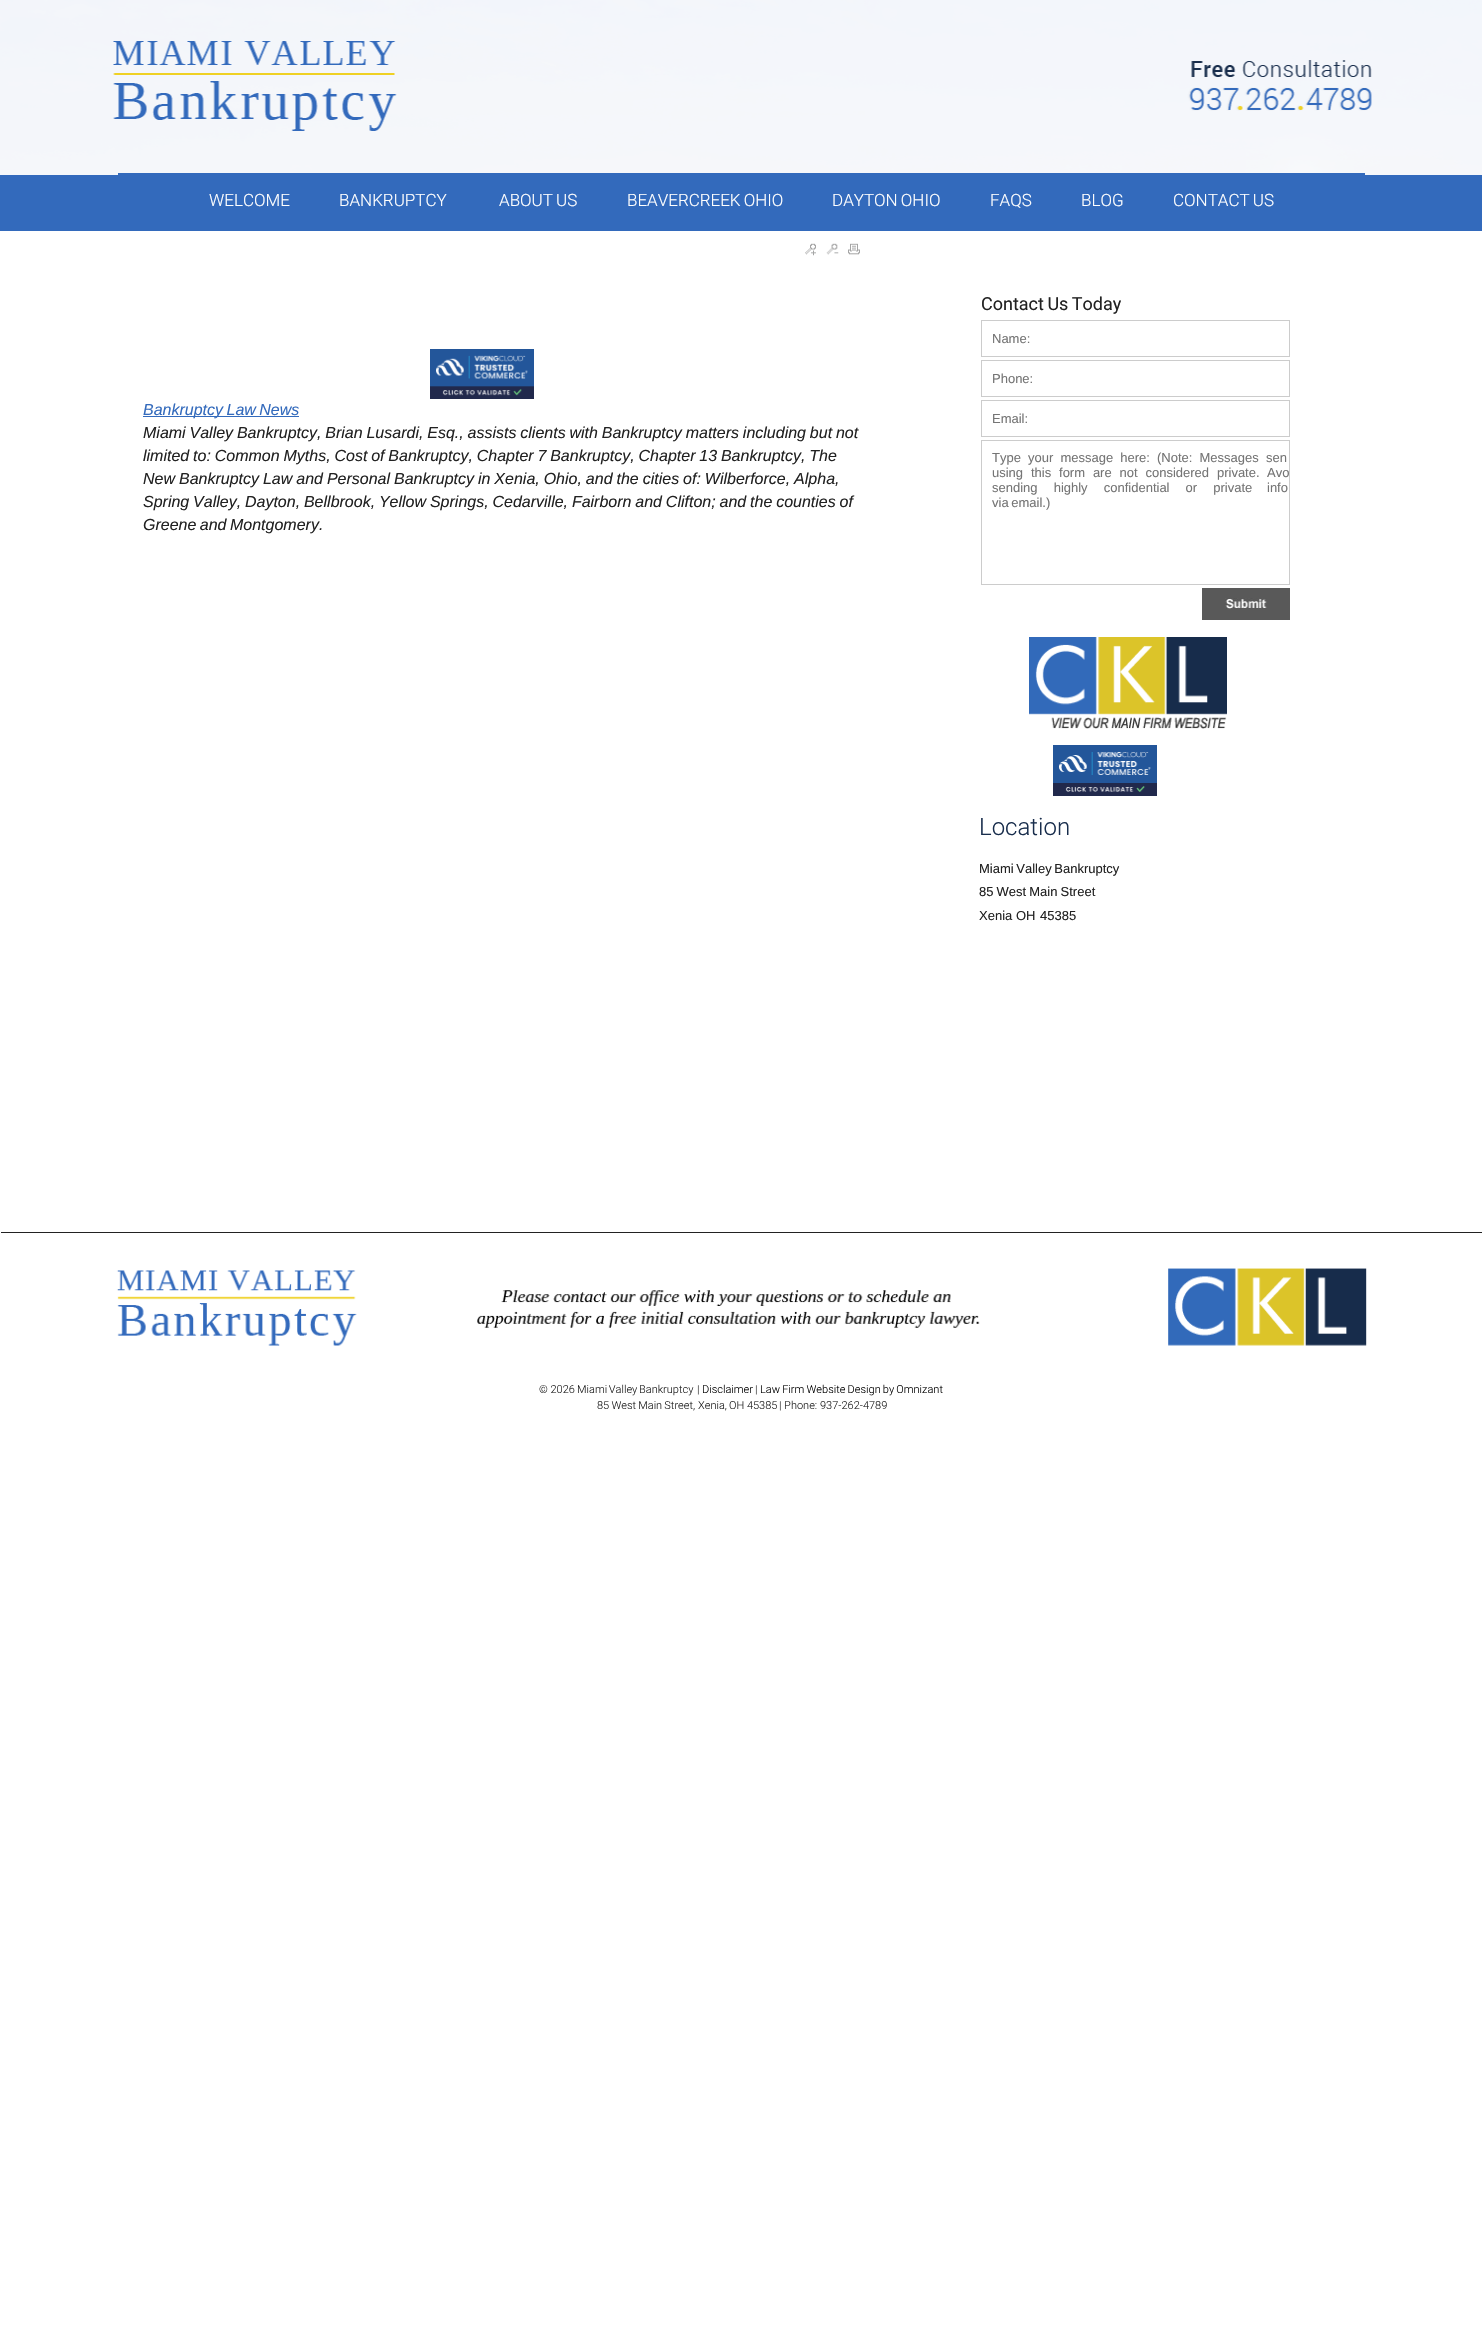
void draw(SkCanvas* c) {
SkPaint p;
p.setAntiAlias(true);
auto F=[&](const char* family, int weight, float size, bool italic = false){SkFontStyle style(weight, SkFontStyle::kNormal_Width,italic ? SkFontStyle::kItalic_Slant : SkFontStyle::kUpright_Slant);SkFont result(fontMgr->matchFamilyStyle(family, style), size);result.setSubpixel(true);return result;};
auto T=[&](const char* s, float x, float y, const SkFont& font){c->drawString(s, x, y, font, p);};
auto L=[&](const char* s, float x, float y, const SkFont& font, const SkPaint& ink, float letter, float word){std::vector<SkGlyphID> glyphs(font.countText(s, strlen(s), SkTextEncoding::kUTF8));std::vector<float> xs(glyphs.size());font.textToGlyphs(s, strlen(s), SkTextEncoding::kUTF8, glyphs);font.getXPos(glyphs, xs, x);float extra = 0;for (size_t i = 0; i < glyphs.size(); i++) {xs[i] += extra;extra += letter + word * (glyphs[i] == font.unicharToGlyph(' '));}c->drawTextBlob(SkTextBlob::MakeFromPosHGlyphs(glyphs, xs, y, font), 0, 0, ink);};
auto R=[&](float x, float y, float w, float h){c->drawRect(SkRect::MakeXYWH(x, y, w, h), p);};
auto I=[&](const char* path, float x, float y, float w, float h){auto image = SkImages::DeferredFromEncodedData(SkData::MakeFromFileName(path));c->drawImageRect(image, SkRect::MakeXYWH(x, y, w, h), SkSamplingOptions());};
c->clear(0xffffffff);
I("1.png",0,0,1482,231);
p.setColor(0xff336abc);
R(118,173,1247,2);
auto f1 = F("Roboto",300,17);
p.setColor(0xffffffff);
T("WELCOME",209,206,f1);
T("BANKRUPTCY",339,206,f1);
L("ABOUT US",499,206,f1,p,0,-1);
L("BEAVERCREEK OHIO",627,206,f1,p,0,-1);
L("DAYTON OHIO",832,206,f1,p,0,-1);
T("FAQS",990,206,f1);
T("BLOG",1081,206,f1);
L("CONTACT US",1173,206,f1,p,0,-1);
I("2.png",805,243,11,13);
I("3.png",826,243,13,12);
I("4.png",848,243,12,12);
I("5.png",430,349,104,50);
p.setColor(0xff336abc);
R(143,416,156,1);
auto f2 = F("Liberation Sans",400,16,true);
L("Bankruptcy Law News",143,415,f2,p,0,-1);
p.setColor(0xff222222);
L("Miami Valley Bankruptcy, Brian Lusardi, Esq., assists clients with Bankruptcy matters including but not",143,438,f2,p,0,-.6);
L("limited to: Common Myths, Cost of Bankruptcy, Chapter 7 Bankruptcy, Chapter 13 Bankruptcy, The",143,461,f2,p,0,-.6);
L("New Bankruptcy Law and Personal Bankruptcy in Xenia, Ohio, and the cities of: Wilberforce, Alpha,",143,484,f2,p,0,-.5);
L("Spring Valley, Dayton, Bellbrook, Yellow Springs, Cedarville, Fairborn and Clifton; and the counties of",143,507,f2,p,0,-.6);
L("Greene and Montgomery.",143,530,f2,p,0,-1);
auto f3 = F("Roboto",400,18);
L("Contact Us Today",981,310,f3,p,0,-1);
p.setStroke(true);
p.setStrokeWidth(1);
p.setColor(0xffcccccc);
c->drawRect(SkRect::MakeXYWH(981.5,320.5,308,36),p);
auto f4 = F("Liberation Sans",400,13);
p.setStroke(false);
p.setColor(0xff757575);
T("Name:",992,343,f4);
p.setStroke(true);
p.setColor(0xffcccccc);
c->drawRect(SkRect::MakeXYWH(981.5,360.5,308,36),p);
p.setStroke(false);
p.setColor(0xff757575);
T("Phone:",992,383,f4);
p.setStroke(true);
p.setColor(0xffcccccc);
c->drawRect(SkRect::MakeXYWH(981.5,400.5,308,36),p);
p.setStroke(false);
p.setColor(0xff757575);
T("Email:",992,423,f4);
p.setStroke(true);
p.setColor(0xffcccccc);
c->drawRect(SkRect::MakeXYWH(981.5,440.5,308,144),p);
p.setStroke(false);
p.setColor(0xff757575);
L("Type your message here: (Note: Messages",992,462,f4,p,0,3.5);
T("sen",1266,462,f4);
L("using this form are not considered private.",992,477,f4,p,0,4.25);
T("Avo",1267,477,f4);
L("sending highly confidential or private",992,492,f4,p,0,12.5);
T("info",1267,492,f4);
L("via email.)",992,507,f4,p,0,-1);
p.setColor(0xff595959);
R(1202,588,88,32);
I("6.png",1225,598,42,11);
I("7.png",1029,637,198,92);
I("8.png",1053,745,104,51);
auto f5 = F("Roboto",300,24);
p.setColor(0xff182d4c);
T("Location",979,835,f5);
p.setColor(0xff222222);
L("Miami Valley Bankruptcy",979,873,f4,p,0,-1);
L("85 West Main Street",979,896,f4,p,0,-.5);
T("Xenia",979,920,f4);
T("OH",1016,920,f4);
T("45385",1040,920,f4);
I("9.png",1,1232,1481,114);
auto f6 = F("Roboto",300,11);
T("© 2026",539,1393,f6);
L("Miami Valley Bankruptcy",577,1393,f6,p,0,-1);
T("|",697,1393,f6);
p.setColor(0xff000000);
T("Disclaimer",702,1393,f6);
p.setColor(0xff222222);
T("|",755,1393,f6);
p.setColor(0xff000000);
L("Law Firm Website Design by Omnizant",760,1393,f6,p,0,-.5);
p.setColor(0xff222222);
L("85 West Main Street,",597,1409,f6,p,0,-.5);
T("Xenia,",698,1409,f6);
T("OH 45385",729,1409,f6);
T("| Phone:",779,1409,f6);
T("937-262-4789",820,1409,f6);
}
